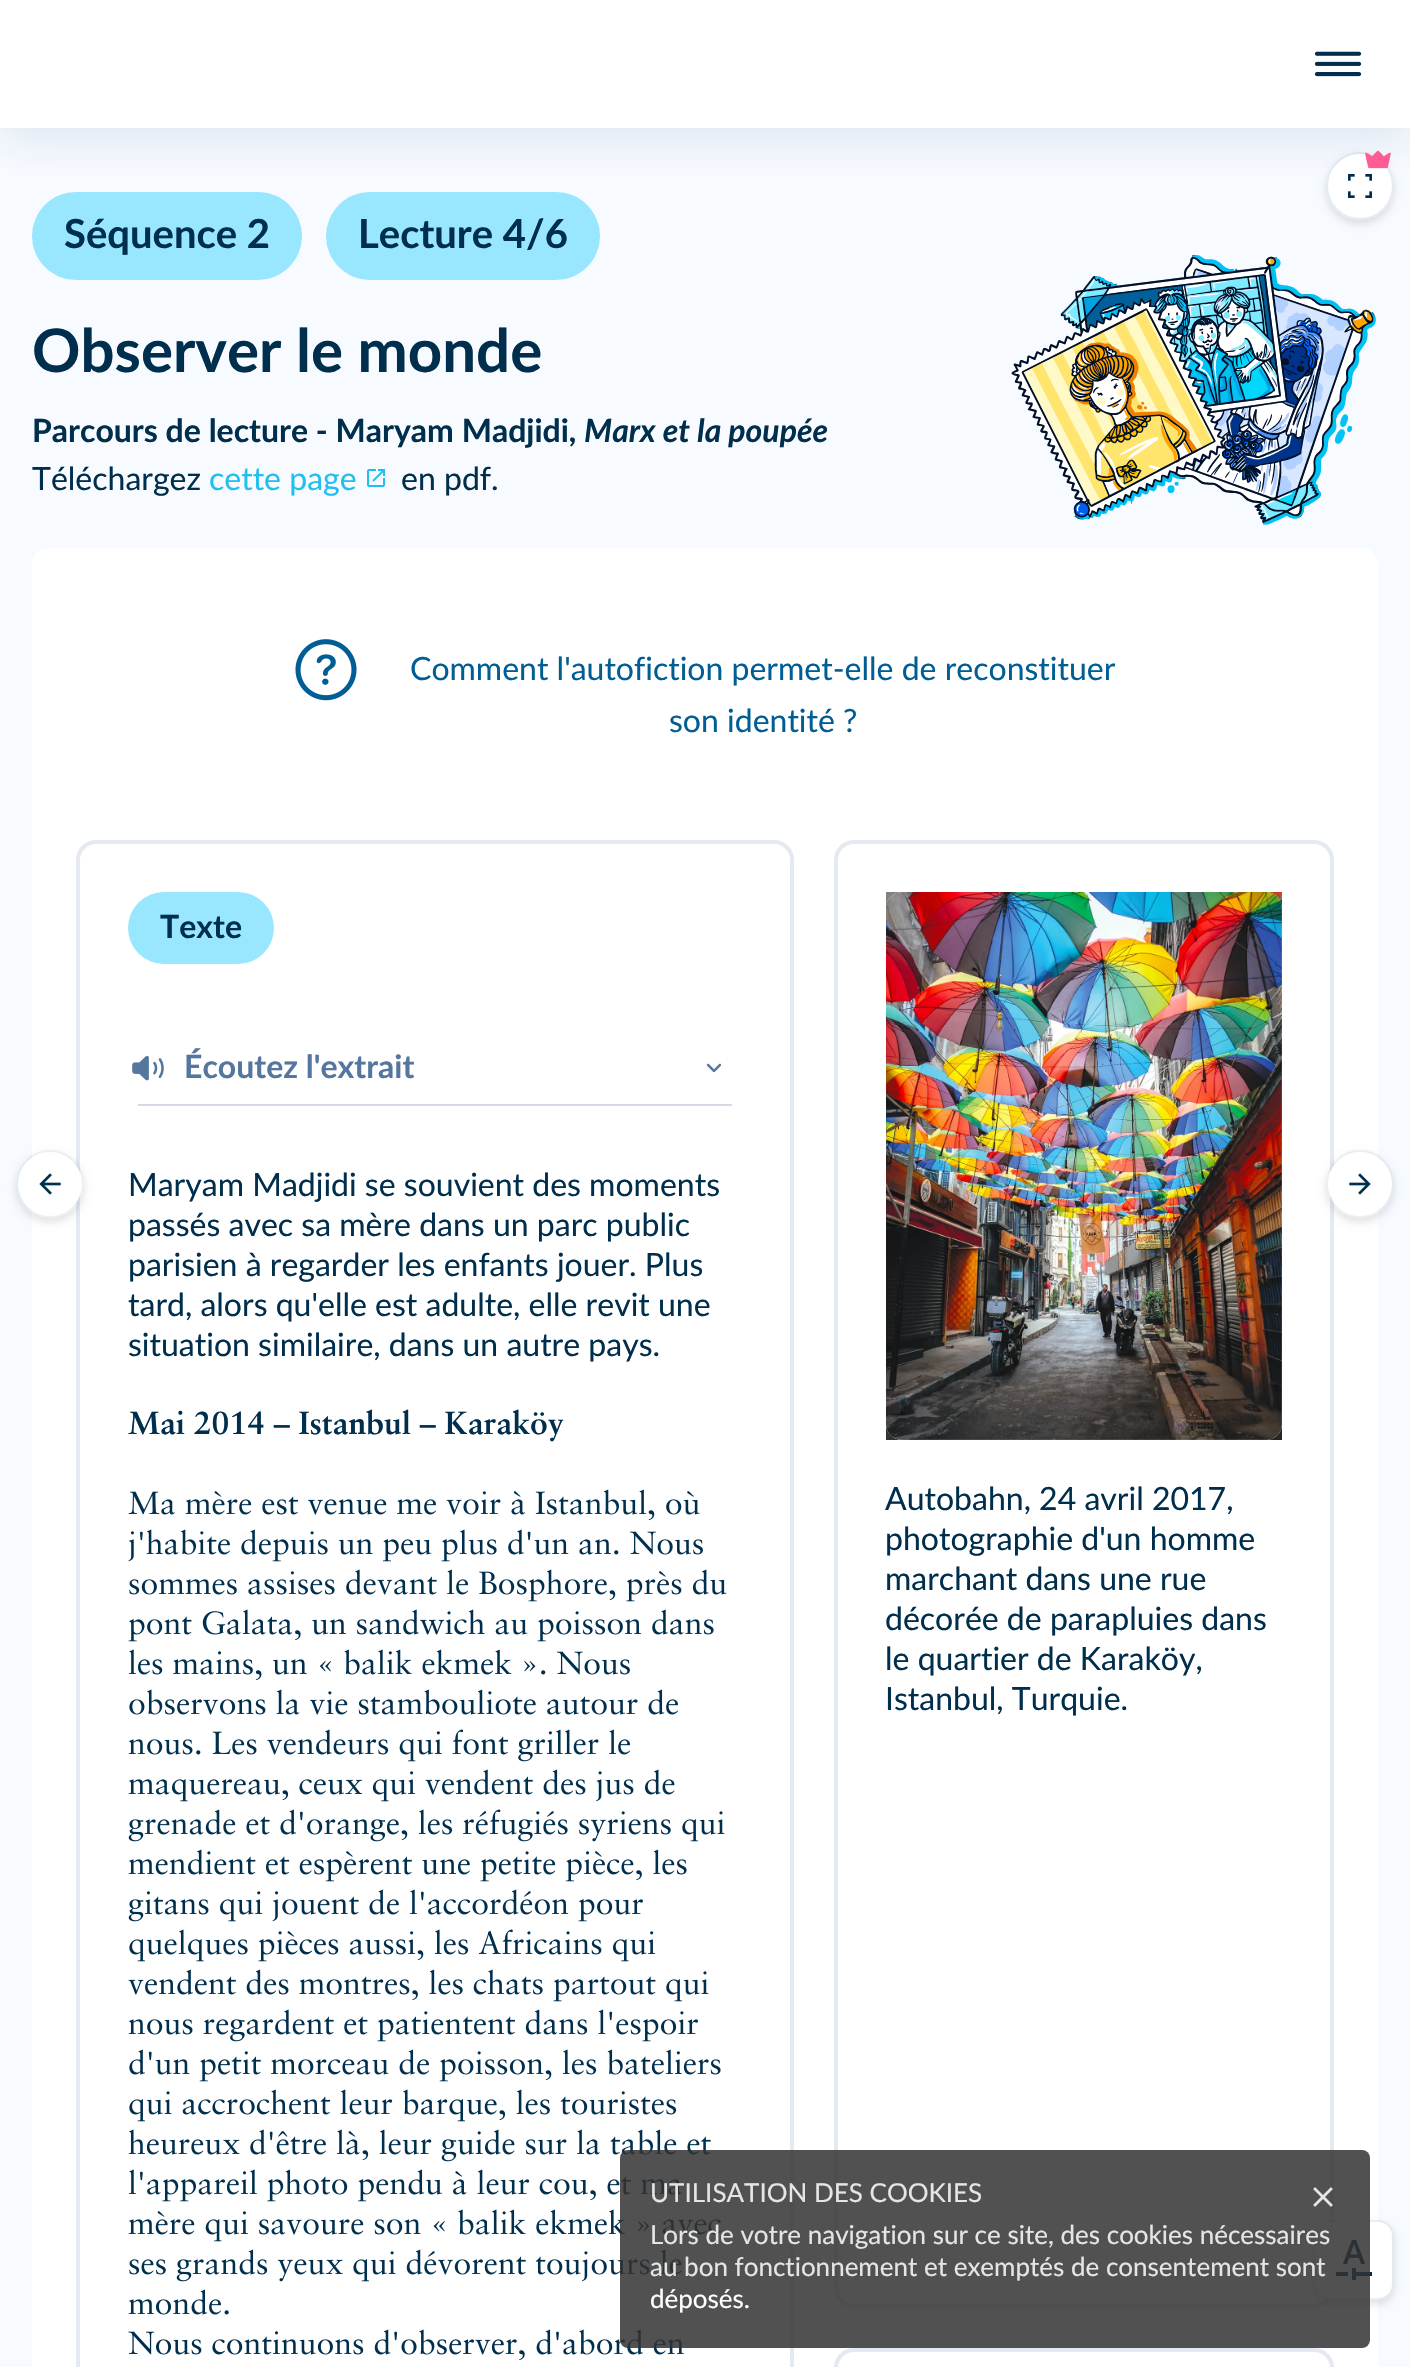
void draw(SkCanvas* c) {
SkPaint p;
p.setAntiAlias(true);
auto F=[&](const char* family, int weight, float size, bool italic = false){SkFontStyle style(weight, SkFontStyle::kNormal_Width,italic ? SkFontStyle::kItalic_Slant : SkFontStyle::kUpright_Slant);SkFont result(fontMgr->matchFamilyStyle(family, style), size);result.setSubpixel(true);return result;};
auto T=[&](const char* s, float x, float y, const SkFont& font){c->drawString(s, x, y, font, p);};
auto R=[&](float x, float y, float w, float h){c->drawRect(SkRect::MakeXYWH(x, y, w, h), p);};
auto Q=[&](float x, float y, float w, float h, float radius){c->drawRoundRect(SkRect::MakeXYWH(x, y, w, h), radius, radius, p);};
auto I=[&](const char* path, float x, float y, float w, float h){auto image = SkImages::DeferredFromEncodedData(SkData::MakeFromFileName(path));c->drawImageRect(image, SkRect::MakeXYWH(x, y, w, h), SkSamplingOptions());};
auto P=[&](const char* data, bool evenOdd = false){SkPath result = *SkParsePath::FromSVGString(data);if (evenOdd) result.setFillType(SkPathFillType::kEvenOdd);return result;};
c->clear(0xffffffff);
p.setColor(0xfff7faff);
R(0,128,1410,2239);
p.setColor(0xff99e7ff);
Q(32,192,270,88,44);
Q(326,192,274,88,44);
c->save();
c->clipRect(SkRect::MakeXYWH(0,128,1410,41));
p.setColor(0x3d7d95b5);
p.setMaskFilter(SkMaskFilter::MakeBlur(kNormal_SkBlurStyle, 24));
c->drawRect(SkRect::MakeXYWH(0,8,1410,128),p);
p.setMaskFilter(nullptr);
c->restore();
I("1.png",1314,51,48,26);
auto f1 = F("Lato",700,40);
p.setColor(0xff002e4d);
T("Séquence 2",64,248,f1);
T("Lecture 4/6",358,248,f1);
auto f2 = F("Lato",700,60);
T("Observer le monde",32,372,f2);
auto f3 = F("Lato",700,32);
T("Parcours de lecture - Maryam Madjidi,",32,442,f3);
auto f4 = F("Lato",700,32,true);
T("Marx et la poupée",584,442,f4);
auto f5 = F("Lato",400,32);
T("Téléchargez",32,490,f5);
p.setColor(0xff21bfef);
T("cette page",209,490,f5);
I("2.png",367,469,18,18);
p.setColor(0xff002e4d);
T("en pdf.",401,490,f5);
I("3.png",1011,255,365,270);
p.setColor(0xffffffff);
Q(32,548,1346,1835,16);
I("4.png",295,639,62,62);
p.setColor(0xff005e95);
T("Comment l'autofiction permet-elle de reconstituer",410,680,f5);
T("son identité ?",669,732,f5);
p.setStroke(true);
p.setStrokeWidth(4);
p.setColor(0xffe4e9f2);
c->drawRoundRect(SkRect::MakeXYWH(78,842,714,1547),18,18,p);
p.setStroke(false);
p.setColor(0xff99e7ff);
Q(128,892,146,72,36);
p.setColor(0xff002e4d);
T("Texte",160,938,f3);
p.setColor(0xffd5dbe5);
R(138,1104,594,2);
I("5.png",132,1055,32,26);
p.setColor(0xff55779e);
T("Écoutez l'extrait",184,1078,f3);
I("6.png",706,1063,16,10);
p.setColor(0xff002e4d);
T("Maryam Madjidi se souvient des moments",128,1196,f5);
T("passés avec sa mère dans un parc public",128,1236,f5);
T("parisien à regarder les enfants jouer. Plus",128,1276,f5);
T("tard, alors qu'elle est adulte, elle revit une",128,1316,f5);
T("situation similaire, dans un autre pays.",128,1356,f5);
auto f6 = F("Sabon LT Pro",700,32);
T("Mai 2014 – Istanbul – Karaköy",128,1434,f6);
I("7.png",128,1489,572,31);
I("8.png",128,1529,575,33);
I("9.png",129,1569,598,33);
I("10.png",128,1609,586,33);
I("11.png",129,1649,501,32);
I("12.png",129,1689,550,26);
I("13.png",128,1729,503,33);
I("14.png",128,1769,547,33);
I("15.png",128,1809,597,33);
I("16.png",128,1849,559,33);
I("17.png",128,1889,515,33);
I("18.png",129,1929,527,33);
I("19.png",128,1969,581,33);
I("20.png",128,2009,570,33);
I("21.png",129,2049,592,33);
I("22.png",129,2089,548,33);
I("23.png",128,2129,583,33);
I("24.png",129,2169,553,33);
I("25.png",128,2209,593,33);
I("26.png",129,2249,553,33);
I("27.png",128,2289,101,26);
I("28.png",128,2329,556,32);
p.setStroke(true);
p.setColor(0xffe4e9f2);
c->drawRoundRect(SkRect::MakeXYWH(836,842,496,1464),18,18,p);
I("29.png",886,892,396,548);
p.setStroke(false);
p.setColor(0xffffffff);
Q(886,892,396,548,16);
I("30.png",886,892,396,548);
p.setColor(0xff002e4d);
T("Autobahn, 24 avril 2017,",885,1510,f5);
T("photographie d'un homme",885,1550,f5);
T("marchant dans une rue",885,1590,f5);
T("décorée de parapluies dans",885,1630,f5);
T("le quartier de Karaköy,",885,1670,f5);
T("Istanbul, Turquie.",885,1710,f5);
p.setStroke(true);
p.setColor(0xffe4e9f2);
c->drawRoundRect(SkRect::MakeXYWH(836,2350,496,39),18,18,p);
c->save();
c->clipPath(P("M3 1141h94v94h-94zm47 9c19 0 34 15 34 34c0 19-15 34-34 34c-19 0-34-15-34-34c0-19 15-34 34-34z",true),true);
p.setStroke(false);
p.setColor(0x1f000000);
p.setMaskFilter(SkMaskFilter::MakeBlur(kNormal_SkBlurStyle, 4));
c->drawRoundRect(SkRect::MakeXYWH(16,1154,68,68),34,34,p);
p.setMaskFilter(nullptr);
c->restore();
p.setColor(0xffffffff);
c->drawCircle(50,1184,32,p);
p.setStroke(true);
p.setStrokeWidth(2);
p.setColor(0x1a386694);
c->drawCircle(50,1184,33,p);
I("31.png",39,1173,22,22);
c->save();
c->clipPath(P("M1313 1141h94v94h-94zm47 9c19 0 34 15 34 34c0 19-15 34-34 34c-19 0-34-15-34-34c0-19 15-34 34-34z",true),true);
p.setStroke(false);
p.setColor(0x1f000000);
p.setMaskFilter(SkMaskFilter::MakeBlur(kNormal_SkBlurStyle, 4));
c->drawRoundRect(SkRect::MakeXYWH(1326,1154,68,68),34,34,p);
p.setMaskFilter(nullptr);
c->restore();
p.setColor(0xffffffff);
c->drawCircle(1360,1184,32,p);
p.setStroke(true);
p.setColor(0x1a386694);
c->drawCircle(1360,1184,33,p);
I("32.png",1349,1173,22,22);
c->save();
c->clipPath(P("M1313 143h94v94h-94zm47 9c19 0 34 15 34 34c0 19-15 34-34 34c-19 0-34-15-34-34c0-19 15-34 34-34z",true),true);
p.setStroke(false);
p.setColor(0x1f000000);
p.setMaskFilter(SkMaskFilter::MakeBlur(kNormal_SkBlurStyle, 4));
c->drawRoundRect(SkRect::MakeXYWH(1326,156,68,68),34,34,p);
p.setMaskFilter(nullptr);
c->restore();
p.setColor(0xffffffff);
c->drawCircle(1360,186,32,p);
p.setStroke(true);
p.setColor(0x1a386694);
c->drawCircle(1360,186,33,p);
I("33.png",1348,174,24,24);
I("34.png",1365,150,26,19);
c->save();
c->clipPath(P("M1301 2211h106v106h-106zm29 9h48c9 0 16 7 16 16v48c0 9-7 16-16 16h-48c-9 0-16-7-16-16v-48c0-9 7-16 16-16z",true),true);
p.setStroke(false);
p.setColor(0x1f000000);
p.setMaskFilter(SkMaskFilter::MakeBlur(kNormal_SkBlurStyle, 4));
c->drawRoundRect(SkRect::MakeXYWH(1314,2224,80,80),16,16,p);
p.setMaskFilter(nullptr);
c->restore();
p.setColor(0xffffffff);
Q(1316,2222,76,76,14);
p.setStroke(true);
p.setColor(0x1a386694);
c->drawRoundRect(SkRect::MakeXYWH(1315,2221,78,78),15,15,p);
I("35.png",1336,2240,36,40);
p.setStroke(false);
p.setColor(0xd9333333);
Q(620,2150,750,198,8);
auto f7 = F("Lato",400,26);
p.setColor(0xffe5e5e5);
T("UTILISATION DES COOKIES",650,2202,f7);
I("36.png",1313,2187,20,20);
T("Lors de votre navigation sur ce site, des cookies nécessaires",650,2244,f7);
T("au bon fonctionnement et exemptés de consentement sont",650,2276,f7);
p.setColor(0xffffffff);
T("déposés.",650,2308,f7);
}
